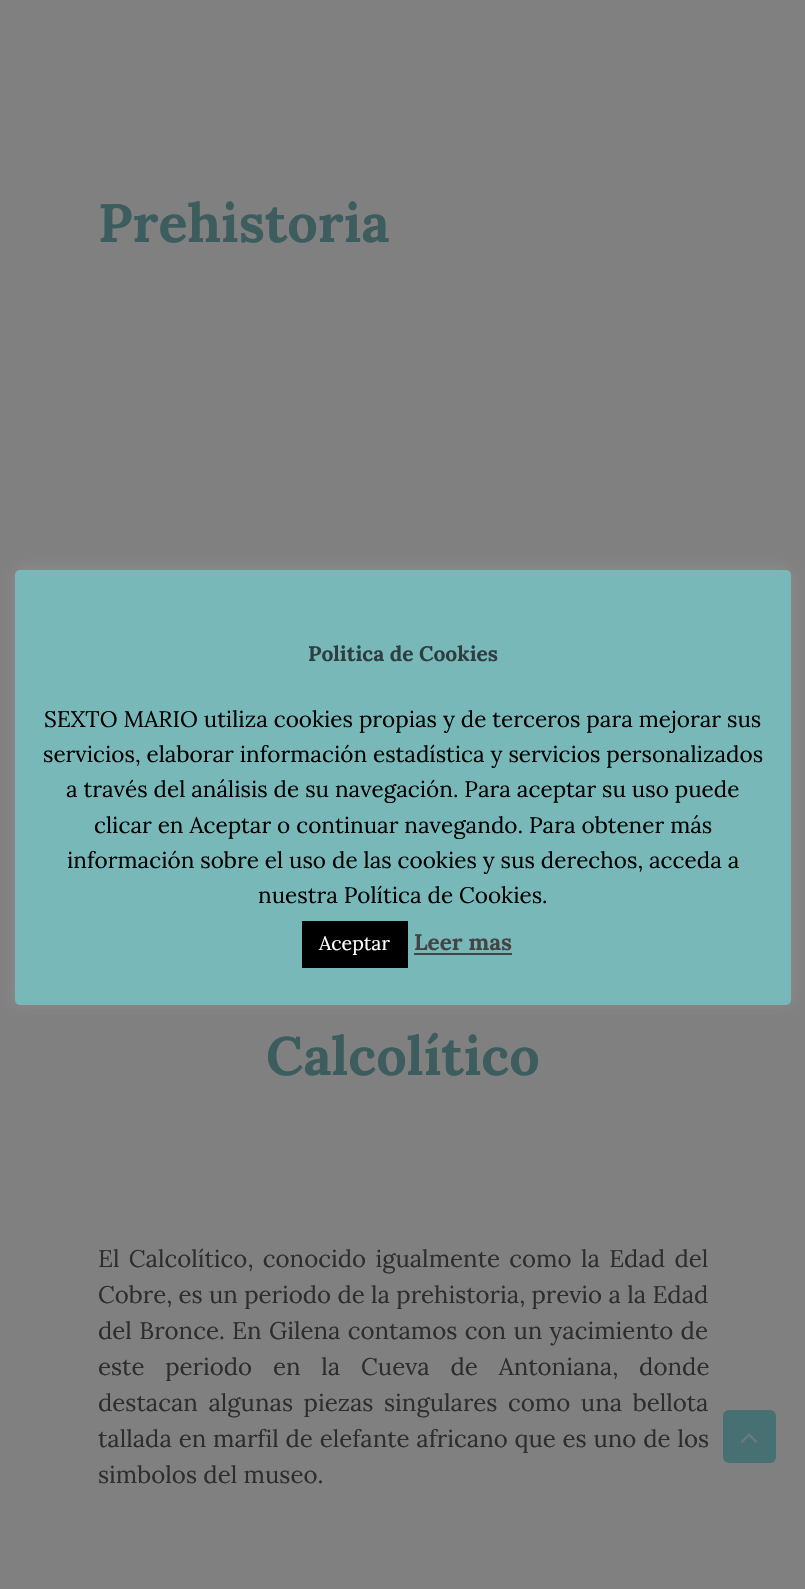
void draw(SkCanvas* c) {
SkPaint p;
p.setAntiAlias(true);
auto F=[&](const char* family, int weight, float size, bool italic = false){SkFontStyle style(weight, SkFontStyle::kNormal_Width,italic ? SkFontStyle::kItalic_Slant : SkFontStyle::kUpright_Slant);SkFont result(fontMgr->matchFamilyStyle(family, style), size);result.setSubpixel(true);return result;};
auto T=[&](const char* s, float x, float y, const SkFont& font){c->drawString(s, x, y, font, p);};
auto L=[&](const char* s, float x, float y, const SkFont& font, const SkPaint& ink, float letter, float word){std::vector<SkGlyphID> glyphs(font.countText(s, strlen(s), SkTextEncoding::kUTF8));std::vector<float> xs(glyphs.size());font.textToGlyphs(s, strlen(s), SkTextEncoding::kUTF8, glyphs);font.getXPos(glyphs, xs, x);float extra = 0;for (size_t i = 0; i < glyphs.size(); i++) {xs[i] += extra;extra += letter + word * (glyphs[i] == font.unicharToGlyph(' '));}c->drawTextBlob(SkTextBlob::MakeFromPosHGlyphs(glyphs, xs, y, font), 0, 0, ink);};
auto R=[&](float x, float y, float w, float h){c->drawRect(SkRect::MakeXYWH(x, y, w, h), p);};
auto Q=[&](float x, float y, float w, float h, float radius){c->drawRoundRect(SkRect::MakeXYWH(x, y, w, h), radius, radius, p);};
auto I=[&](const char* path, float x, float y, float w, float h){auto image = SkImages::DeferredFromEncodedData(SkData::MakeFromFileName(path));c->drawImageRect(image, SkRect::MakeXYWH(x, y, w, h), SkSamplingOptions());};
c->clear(0xff808080);
auto f1 = F("Lora",700,54);
p.setColor(0xff3c5c5d);
T("Prehistoria",98,242,f1);
T("Calcolítico",266,1075,f1);
auto f2 = F("Lora",400,24);
p.setColor(0xff2d2d2d);
L("El Calcolítico, conocido igualmente como la Edad del",98,1267,f2,p,0,3);
T("Cobre, es un periodo de la prehistoria, previo a la Edad",98,1303,f2);
L("del Bronce. En Gilena contamos con un yacimiento de",98,1339,f2,p,0,1);
L("este periodo en la Cueva de Antoniana, donde",98,1375,f2,p,0,14.5);
L("destacan algunas piezas singulares como una bellota",98,1411,f2,p,0,4.25);
L("tallada en marfil de elefante africano que es uno de los",98,1447,f2,p,0,.5);
T("simbolos del museo.",98,1483,f2);
p.setColor(0x4dacabab);
p.setMaskFilter(SkMaskFilter::MakeBlur(kNormal_SkBlurStyle, 7.5));
c->drawRoundRect(SkRect::MakeXYWH(15,569,776,435),5,5,p);
p.setMaskFilter(nullptr);
p.setColor(0xff78b8b9);
Q(15,570,776,435,5);
auto f3 = F("Lora",700,21);
p.setColor(0xff2e3e40);
T("Politica de Cookies",308,661,f3);
auto f4 = F("Lora",400,22.5);
p.setColor(0xff000000);
T("SEXTO MARIO utiliza cookies propias y de terceros para mejorar sus",44,727,f4);
T("servicios, elaborar información estadística y servicios personalizados",43,762,f4);
T("a través del análisis de su navegación. Para aceptar su uso puede",66,797,f4);
T("clicar en Aceptar o continuar navegando. Para obtener más",94,833,f4);
T("información sobre el uso de las cookies y sus derechos, acceda a",67,868,f4);
T("nuestra Política de Cookies.",258,903,f4);
R(302,921,106,47);
auto f5 = F("Lora",400,19.5);
p.setColor(0xffffffff);
T("Aceptar",319,950,f5);
auto f6 = F("Lora",700,22.5);
p.setColor(0xff444444);
T("Leer mas",414,950,f6);
R(414,953,98,2);
p.setColor(0xff467071);
Q(723,1410,53,53,6);
I("1.png",740,1433,18,10);
}
